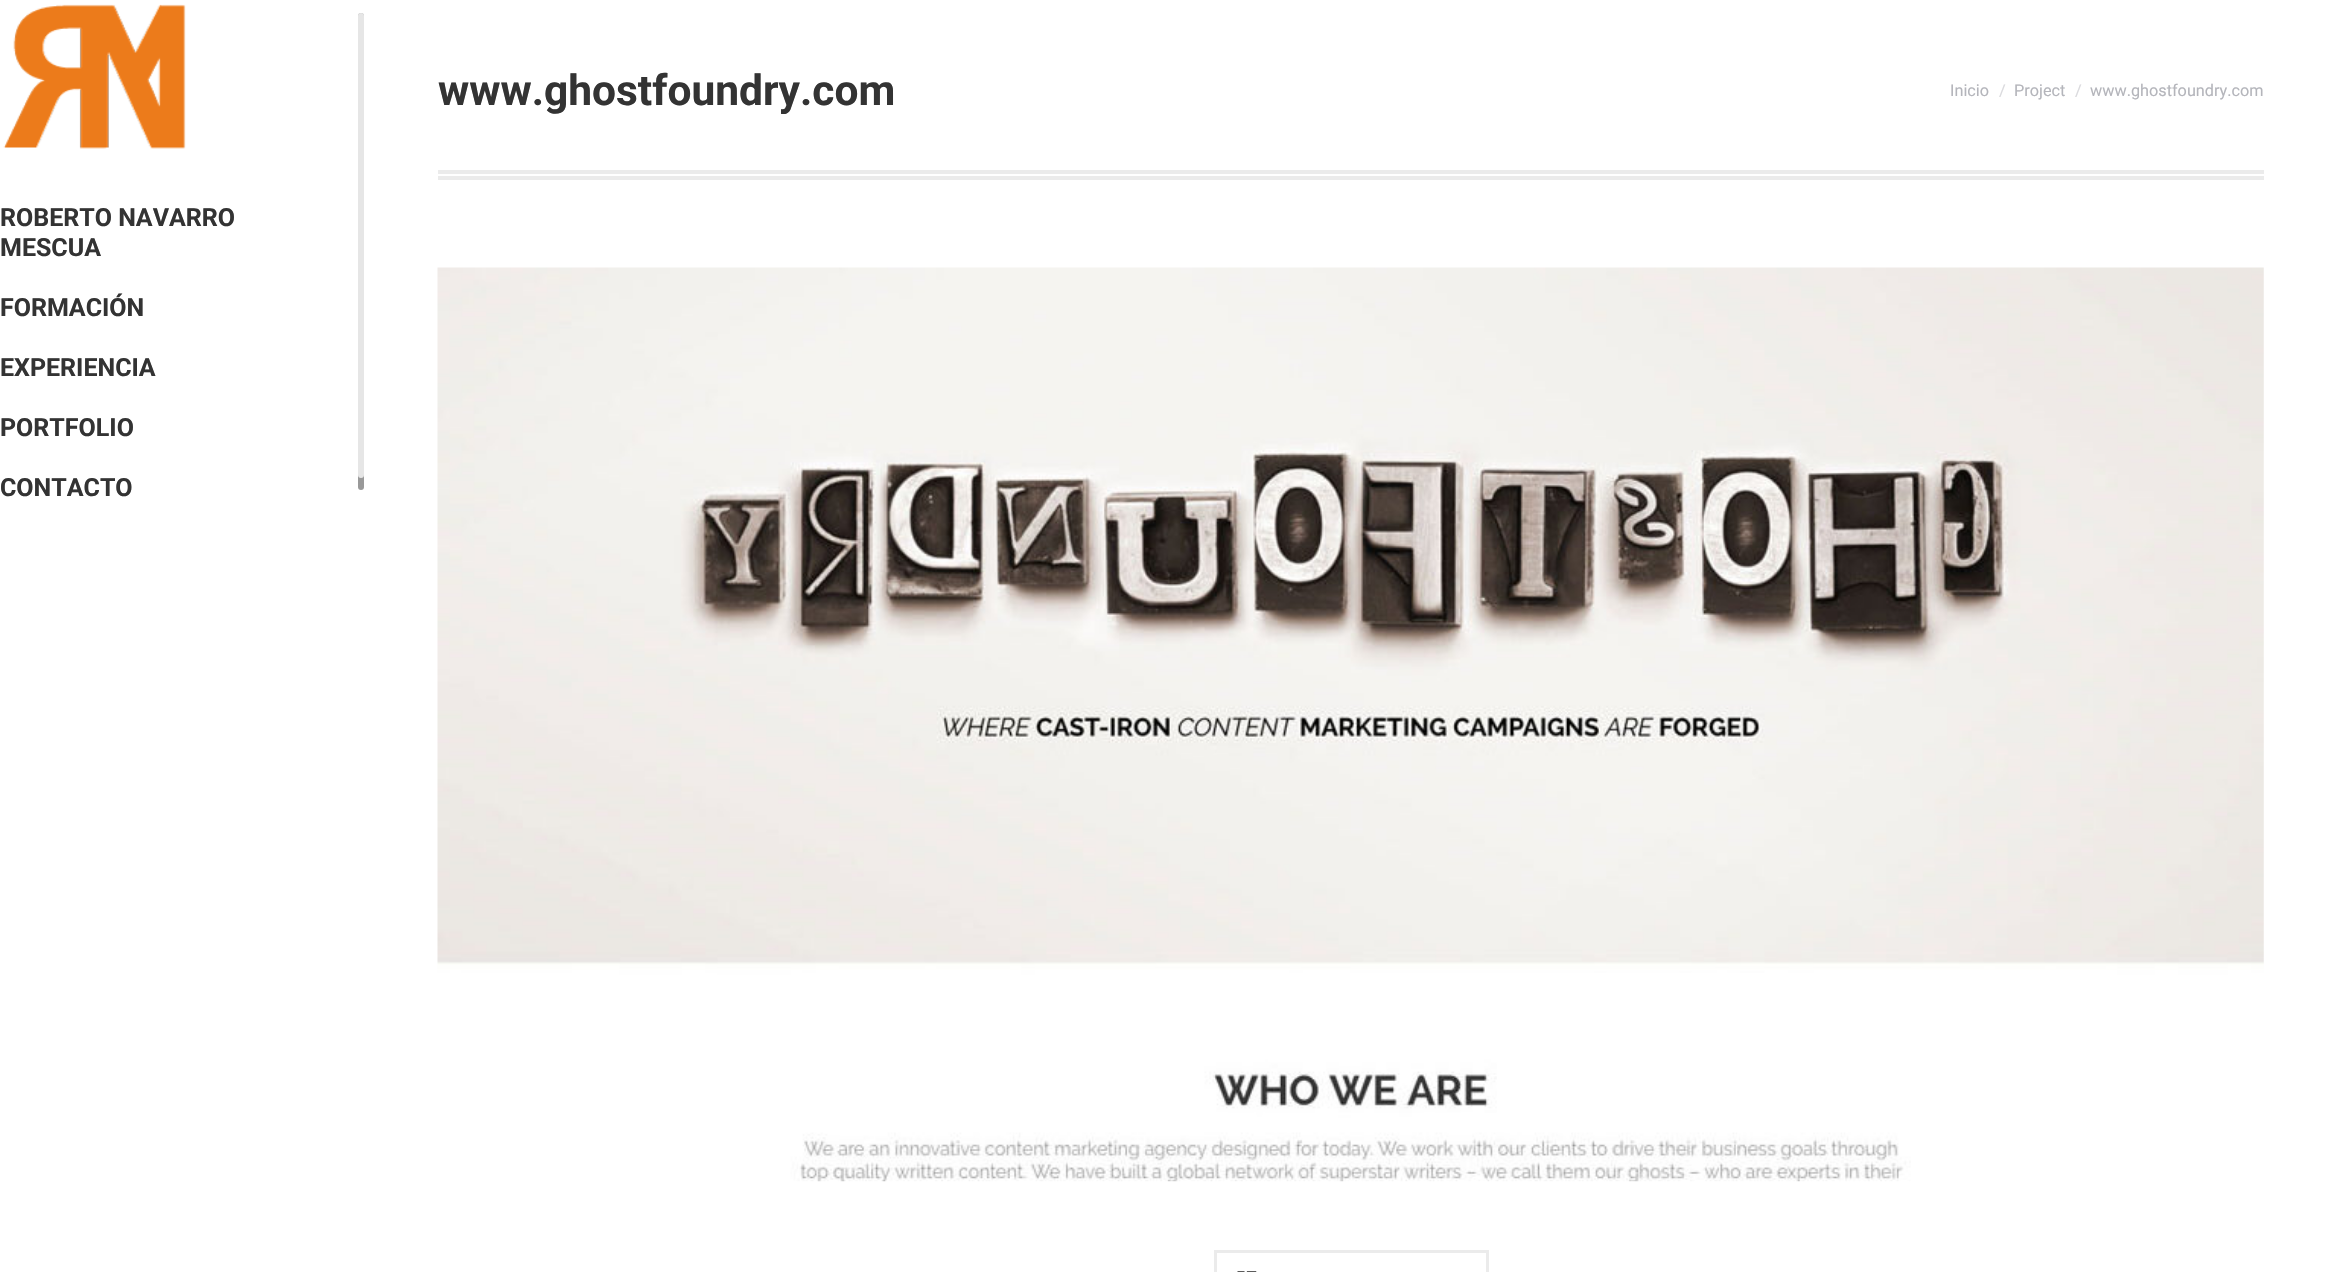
void draw(SkCanvas* c) {
SkPaint p;
p.setAntiAlias(true);
auto F=[&](const char* family, int weight, float size, bool italic = false){SkFontStyle style(weight, SkFontStyle::kNormal_Width,italic ? SkFontStyle::kItalic_Slant : SkFontStyle::kUpright_Slant);SkFont result(fontMgr->matchFamilyStyle(family, style), size);result.setSubpixel(true);return result;};
auto T=[&](const char* s, float x, float y, const SkFont& font){c->drawString(s, x, y, font, p);};
auto R=[&](float x, float y, float w, float h){c->drawRect(SkRect::MakeXYWH(x, y, w, h), p);};
auto Q=[&](float x, float y, float w, float h, float radius){c->drawRoundRect(SkRect::MakeXYWH(x, y, w, h), radius, radius, p);};
auto I=[&](const char* path, float x, float y, float w, float h){auto image = SkImages::DeferredFromEncodedData(SkData::MakeFromFileName(path));c->drawImageRect(image, SkRect::MakeXYWH(x, y, w, h), SkSamplingOptions());};
c->clear(0xffffffff);
auto f1 = F("Roboto",700,42.5);
p.setColor(0xff333333);
T("www.ghostfoundry.com",438,105,f1);
auto f2 = F("Roboto",400,16.25);
p.setColor(0xffb4b5bb);
T("Inicio",1950,96,f2);
p.setColor(0xffdadadd);
T("/",1999,96,f2);
p.setColor(0xffb4b5bb);
T("Project",2014,96,f2);
p.setColor(0xffdadadd);
T("/",2075,96,f2);
p.setColor(0xffb4b5bb);
T("www.ghostfoundry.com",2090,96,f2);
p.setColor(0xffebebeb);
R(438,170,1826,4);
R(438,176,1826,4);
I("1.png",3,4,183,145);
auto f3 = F("Roboto",700,25);
p.setColor(0xff333333);
T("ROBERTO NAVARRO",0,226,f3);
T("MESCUA",0,256,f3);
T("FORMACIÓN",0,316,f3);
T("EXPERIENCIA",0,376,f3);
T("PORTFOLIO",0,436,f3);
T("CONTACTO",0,496,f3);
p.setColor(0xff999999);
Q(358,13,6,477,3);
p.setColor(0xbfffffff);
Q(358,13,6,465,3);
I("2.png",437,267,1827,915);
p.setStroke(true);
p.setStrokeWidth(3);
p.setColor(0xffebebeb);
c->drawRect(SkRect::MakeXYWH(1215.5,1251.5,272,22),p);
I("3.png",1237,1271,20,1);
}
